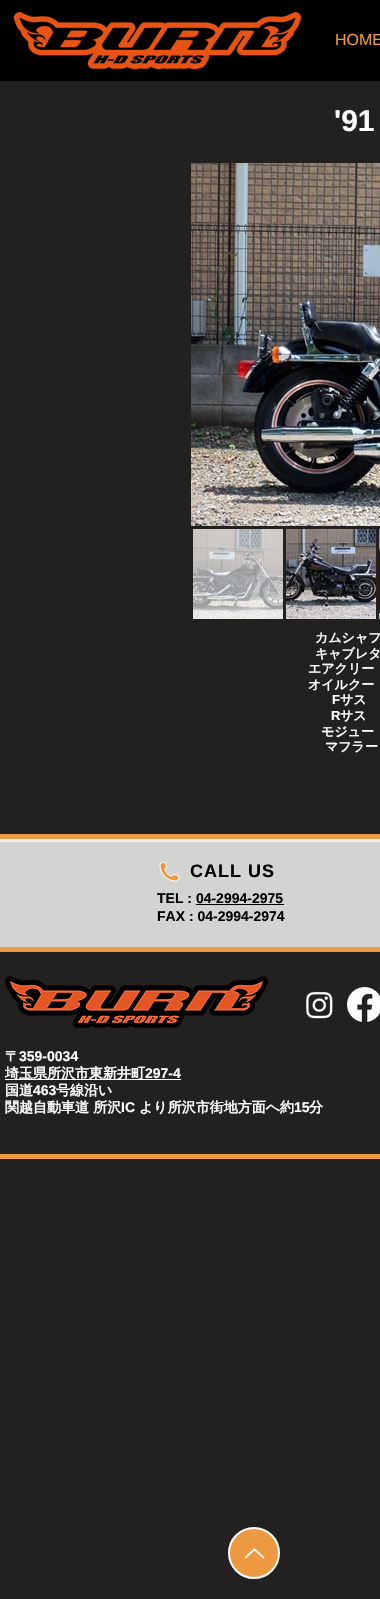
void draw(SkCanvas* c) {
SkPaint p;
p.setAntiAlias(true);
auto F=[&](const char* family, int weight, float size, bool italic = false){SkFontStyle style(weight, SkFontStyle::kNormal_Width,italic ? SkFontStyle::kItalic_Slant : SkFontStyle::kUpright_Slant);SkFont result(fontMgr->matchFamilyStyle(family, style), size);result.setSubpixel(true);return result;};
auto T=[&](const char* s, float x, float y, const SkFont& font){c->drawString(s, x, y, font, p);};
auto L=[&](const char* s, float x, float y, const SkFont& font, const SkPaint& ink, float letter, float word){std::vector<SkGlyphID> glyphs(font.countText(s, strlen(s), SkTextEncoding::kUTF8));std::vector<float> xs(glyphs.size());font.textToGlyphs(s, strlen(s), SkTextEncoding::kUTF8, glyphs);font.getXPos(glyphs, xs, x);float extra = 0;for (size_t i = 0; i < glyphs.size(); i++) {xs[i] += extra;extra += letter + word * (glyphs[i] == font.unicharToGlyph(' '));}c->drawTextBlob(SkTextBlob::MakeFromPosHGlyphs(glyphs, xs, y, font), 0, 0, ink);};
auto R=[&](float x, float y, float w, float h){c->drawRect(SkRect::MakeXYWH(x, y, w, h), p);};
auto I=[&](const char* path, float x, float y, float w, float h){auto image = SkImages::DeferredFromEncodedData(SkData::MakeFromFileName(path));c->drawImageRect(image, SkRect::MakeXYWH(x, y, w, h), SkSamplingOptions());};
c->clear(0xff222120);
p.setColor(0xff000000);
R(0,0,380,81);
I("1.png",14,12,287,57);
auto f1 = F("Liberation Sans",400,16);
p.setColor(0xffed9942);
T("HOME",335,45,f1);
auto f2 = F("Liberation Sans",700,30);
p.setColor(0xffffffff);
T("'91",334,131,f2);
I("2.png",191,163,189,363);
I("3.png",193,529,90,90);
I("4.png",286,529,90,90);
I("5.png",379,529,1,90);
auto f3 = F("WenQuanYi Zen Hei",700,13);
T("カムシャフ",315,642,f3);
T("キャブレタ",315,658,f3);
T("エアクリー",308,673,f3);
T("オイルクー",308,689,f3);
auto f4 = F("Liberation Sans",700,13);
T("F",332,704,f4);
T("サス",340,704,f3);
T("R",331,720,f4);
T("サス",340,720,f3);
T("モジュー",321,736,f3);
T("マフラー",325,751,f3);
p.setColor(0xffececec);
R(0,839,380,3);
p.setColor(0xffed9942);
R(0,834,380,5);
p.setColor(0xffd3d3d2);
R(0,842,380,105);
I("6.png",159,861,21,21);
auto f5 = F("Liberation Sans",700,18);
p.setColor(0xff000000);
L("CALL US",190,877,f5,p,1,0);
auto f6 = F("Liberation Sans",700,14);
T("TEL : 04-2994-2975",157,903,f6);
R(196,904,88,1);
T("FAX : 04-2994-2974",157,921,f6);
p.setColor(0xffed9942);
R(0,947,380,5);
I("7.png",5,976,263,52);
I("8.png",306,991,27,28);
I("9.png",347,987,33,35);
auto f7 = F("WenQuanYi Zen Hei",700,14);
p.setColor(0xffffffff);
T("〒",5,1061,f7);
T("359-0034",19,1061,f6);
R(5,1079,176,1);
T("埼玉県所沢市東新井町",5,1078,f7);
T("297-4",145,1078,f6);
T("国道",5,1095,f7);
T("463",33,1095,f6);
T("号線沿い",56,1095,f7);
T("関越自動車道 所沢",5,1112,f7);
T("IC",121,1112,f6);
T("より所沢市街地方面へ約",139,1112,f7);
T("15",294,1112,f6);
T("分",309,1112,f7);
p.setColor(0xffed9942);
R(0,1154,380,5);
c->drawCircle(254,1553,25,p);
p.setStroke(true);
p.setStrokeWidth(2);
p.setColor(0xffffffff);
c->drawCircle(254,1553,25,p);
I("10.png",244,1548,21,11);
}
